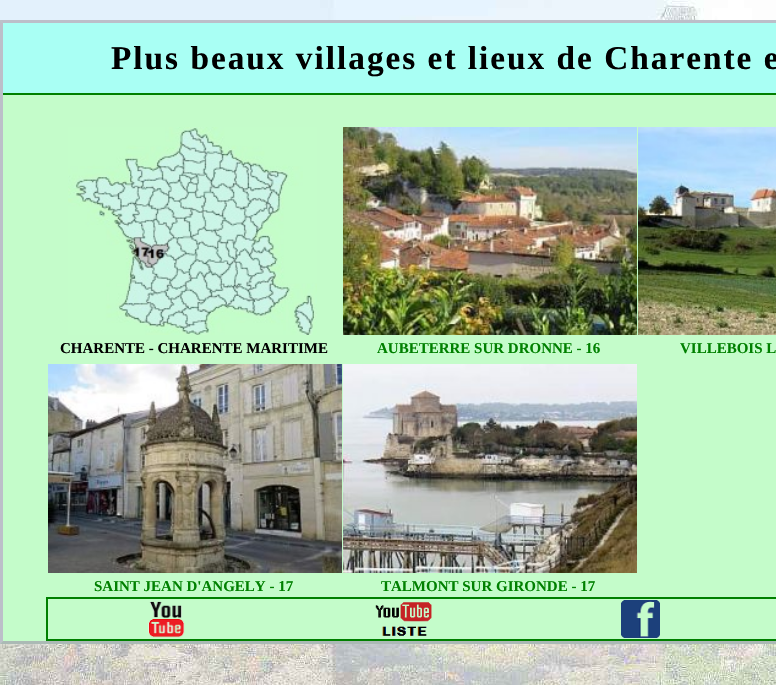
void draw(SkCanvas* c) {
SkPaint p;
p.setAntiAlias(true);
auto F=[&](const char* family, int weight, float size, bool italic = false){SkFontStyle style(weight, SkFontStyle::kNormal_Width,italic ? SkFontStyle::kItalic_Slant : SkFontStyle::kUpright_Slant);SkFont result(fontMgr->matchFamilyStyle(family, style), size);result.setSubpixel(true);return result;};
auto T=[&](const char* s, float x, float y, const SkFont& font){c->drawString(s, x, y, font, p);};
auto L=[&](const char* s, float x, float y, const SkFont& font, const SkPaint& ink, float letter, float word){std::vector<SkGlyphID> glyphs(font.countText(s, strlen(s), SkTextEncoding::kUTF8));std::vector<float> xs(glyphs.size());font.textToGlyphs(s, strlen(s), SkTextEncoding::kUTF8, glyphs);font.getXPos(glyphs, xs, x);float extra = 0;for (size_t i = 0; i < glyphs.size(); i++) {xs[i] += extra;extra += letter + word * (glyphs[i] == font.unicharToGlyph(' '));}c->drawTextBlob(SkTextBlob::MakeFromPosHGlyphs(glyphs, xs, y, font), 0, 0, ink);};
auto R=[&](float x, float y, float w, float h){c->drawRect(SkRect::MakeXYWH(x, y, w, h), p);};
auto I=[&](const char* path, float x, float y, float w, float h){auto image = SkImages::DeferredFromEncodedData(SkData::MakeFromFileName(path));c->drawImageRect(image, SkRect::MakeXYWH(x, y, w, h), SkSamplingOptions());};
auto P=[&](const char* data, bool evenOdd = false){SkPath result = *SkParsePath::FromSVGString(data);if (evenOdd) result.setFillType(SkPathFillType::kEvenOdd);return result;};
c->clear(0xffffffff);
I("1.png",0,0,776,685);
p.setColor(0xffc4fcca);
R(0,20,776,624);
p.setColor(0xffbcbfc9);
c->drawPath(P("M0 20h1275l-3 3h-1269z"),p);
p.setColor(0xffabbab5);
c->drawPath(P("M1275 644h-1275l3-3h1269z"),p);
p.setColor(0x4daa32c8);
c->drawPath(P("M0 644v-624l3 3v618z"),p);
p.setColor(0xffa9fff4);
R(3,23,773,70);
p.setColor(0xff008000);
R(3,93,773,2);
auto f1 = F("Liberation Serif",700,33.3);
p.setColor(0xff000000);
L("Plus beaux villages et lieux de Charente e",111,69,f1,p,2,0);
I("2.png",68,127,249,208);
auto f2 = F("Liberation Serif",700,15);
T("CHARENTE - CHARENTE MARITIME",60,353,f2);
I("3.png",343,127,294,208);
p.setColor(0xff008000);
T("AUBETERRE SUR DRONNE - 16",377,353,f2);
I("4.png",638,127,138,208);
T("VILLEBOIS L",680,353,f2);
I("5.png",48,364,294,209);
T("SAINT JEAN D'ANGELY - 17",94,591,f2);
I("6.png",343,364,294,209);
T("TALMONT SUR GIRONDE - 17",381,591,f2);
p.setStroke(true);
p.setStrokeWidth(2);
c->drawRect(SkRect::MakeXYWH(47,598,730,42),p);
I("7.png",148,601,37,37);
I("8.png",375,602,57,34);
I("9.png",621,600,39,38);
}
